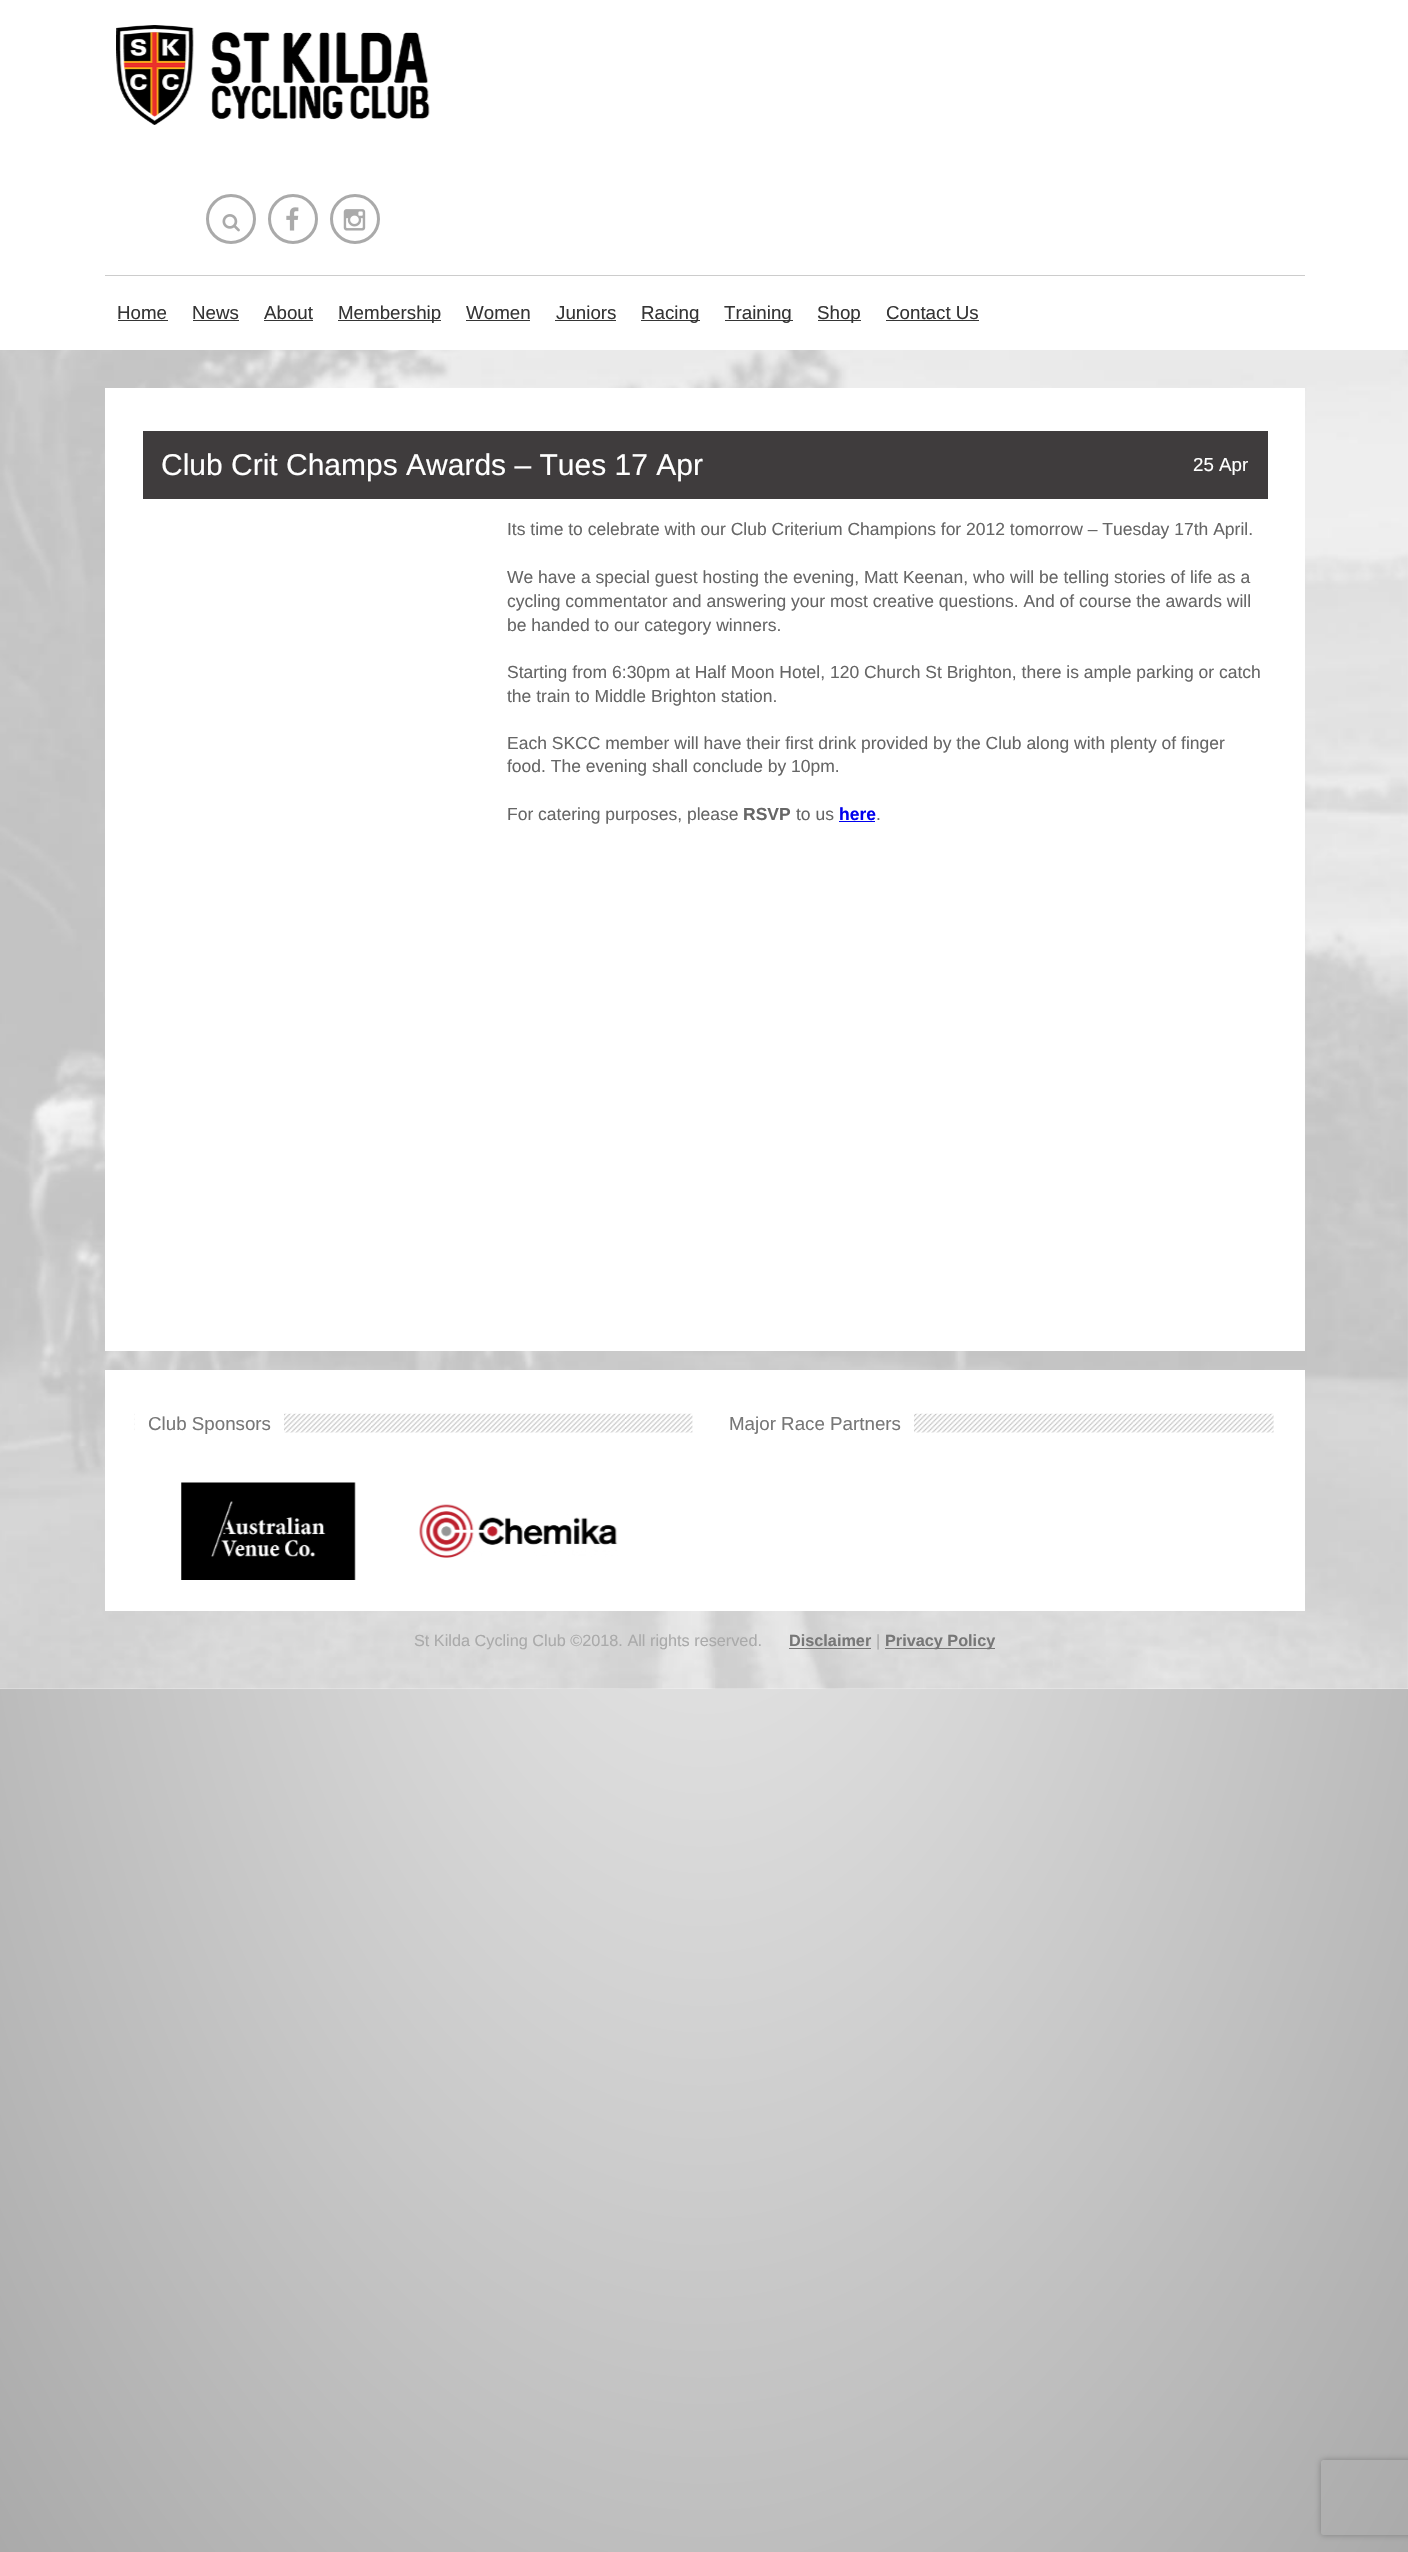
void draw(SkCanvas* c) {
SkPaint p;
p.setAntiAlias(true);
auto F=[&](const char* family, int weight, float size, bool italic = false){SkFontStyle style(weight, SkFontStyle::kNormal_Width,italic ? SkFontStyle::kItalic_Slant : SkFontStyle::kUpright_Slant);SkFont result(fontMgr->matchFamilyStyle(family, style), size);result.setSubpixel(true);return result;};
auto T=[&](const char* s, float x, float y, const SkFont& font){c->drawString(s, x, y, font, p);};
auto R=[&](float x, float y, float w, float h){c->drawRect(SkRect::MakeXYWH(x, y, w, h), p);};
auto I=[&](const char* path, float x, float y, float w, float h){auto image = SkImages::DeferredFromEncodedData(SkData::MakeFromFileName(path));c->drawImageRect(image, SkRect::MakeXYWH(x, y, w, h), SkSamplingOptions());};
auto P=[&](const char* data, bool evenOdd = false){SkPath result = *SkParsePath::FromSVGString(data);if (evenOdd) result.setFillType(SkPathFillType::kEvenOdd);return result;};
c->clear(0xffffffff);
{
const SkColor colors[] = {0xffeeeeee,0xffaaaaaa};
const float stops[] = {0,1};
SkMatrix m = SkMatrix::Translate(704,1276).preScale(996,1805);
p.setShader(SkGradientShader::MakeRadial({0, 0}, 1, colors, stops, 2, SkTileMode::kClamp, 0, &m));
p.setAlpha(255);
}
R(0,1689,1408,863);
I("1.png",0,350,1408,1339);
I("2.png",116,25,314,100);
p.setStroke(true);
p.setStrokeWidth(3);
p.setShader(nullptr);
p.setColor(0xffaaaaaa);
c->drawCircle(231,219,23.5,p);
I("3.png",222,214,18,18);
c->drawCircle(293,219,23.5,p);
I("4.png",286,207,13,24);
c->drawCircle(355,219,23.5,p);
I("5.png",343,209,23,22);
p.setStroke(false);
p.setColor(0xffcccccc);
R(105,275,1200,1);
auto f1 = F("Liberation Sans",400,18.75);
p.setColor(0xff353535);
T("Home",117,319,f1);
R(118,320,50,1);
T("News",192,319,f1);
R(193,320,46,1);
T("About",264,319,f1);
R(264,320,49,1);
R(338,320,103,1);
T("Membership",338,319,f1);
T("Women",466,319,f1);
R(466,320,64,1);
T("Juniors",556,319,f1);
R(555,320,61,1);
R(641,320,59,1);
T("Racing",641,319,f1);
R(725,320,68,1);
T("Training",724,319,f1);
R(818,320,43,1);
T("Shop",817,319,f1);
T("Contact Us",886,319,f1);
R(886,320,93,1);
p.setColor(0xffffffff);
R(105,388,1200,963);
p.setColor(0xff3f3c3d);
R(143,431,1125,68);
auto f2 = F("Liberation Sans",400,30);
p.setColor(0xffffffff);
T("Club Crit Champs Awards – Tues 17 Apr",161,475,f2);
T("25 Apr",1193,471,f1);
auto f3 = F("Liberation Sans",400,17.5);
p.setColor(0xff666666);
T("Its time to celebrate with our Club Criterium Champions for 2012 tomorrow – Tuesday 17th April.",507,535,f3);
T("We have a special guest hosting the evening, Matt Keenan, who will be telling stories of life as a",507,583,f3);
T("cycling commentator and answering your most creative questions. And of course the awards will",507,607,f3);
T("be handed to our category winners.",507,631,f3);
T("Starting from 6:30pm at Half Moon Hotel, 120 Church St Brighton, there is ample parking or catch",507,678,f3);
T("the train to Middle Brighton station.",507,702,f3);
T("Each SKCC member will have their first drink provided by the Club along with plenty of finger",507,749,f3);
T("food. The evening shall conclude by 10pm.",507,772,f3);
T("For catering purposes, please",507,820,f3);
auto f4 = F("Liberation Sans",700,17.5);
T("RSVP",743,820,f4);
T("to us",796,820,f3);
p.setColor(0xff0000ee);
T("here",839,820,f4);
R(839,821,36,1);
p.setColor(0xff666666);
T(".",876,820,f3);
p.setColor(0xffffffff);
R(105,1370,1200,241);
I("6.png",134,1413,559,20);
R(135,1413,149,20);
p.setColor(0xff777777);
T("Club Sponsors",148,1430,f1);
I("7.png",181,1482,175,98);
I("8.png",419,1504,199,54);
I("9.png",914,1413,360,20);
T("Major Race Partners",729,1430,f1);
auto f5 = F("Liberation Sans",400,16.25);
p.setColor(0xffaaaaaa);
T("St Kilda Cycling Club ©2018. All rights reserved.",414,1646,f5);
auto f6 = F("Liberation Sans",700,16.25);
p.setColor(0xff777777);
T("Disclaimer",789,1646,f6);
R(789,1648,82,1);
p.setColor(0xffaaaaaa);
T("|",876,1646,f5);
p.setColor(0xff777777);
R(885,1648,110,1);
T("Privacy Policy",885,1646,f6);
c->save();
c->clipPath(P("M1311 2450h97v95h-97zm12.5 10h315c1.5 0 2.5 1 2.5 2.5v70c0 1.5-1 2.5-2.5 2.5h-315c-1.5 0-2.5-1-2.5-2.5v-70c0-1.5 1-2.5 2.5-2.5z",true),true);
p.setColor(0xff808080);
p.setMaskFilter(SkMaskFilter::MakeBlur(kNormal_SkBlurStyle, 3));
c->drawRoundRect(SkRect::MakeXYWH(1321,2460,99,75),2.5,2.5,p);
p.setMaskFilter(nullptr);
c->restore();
}
